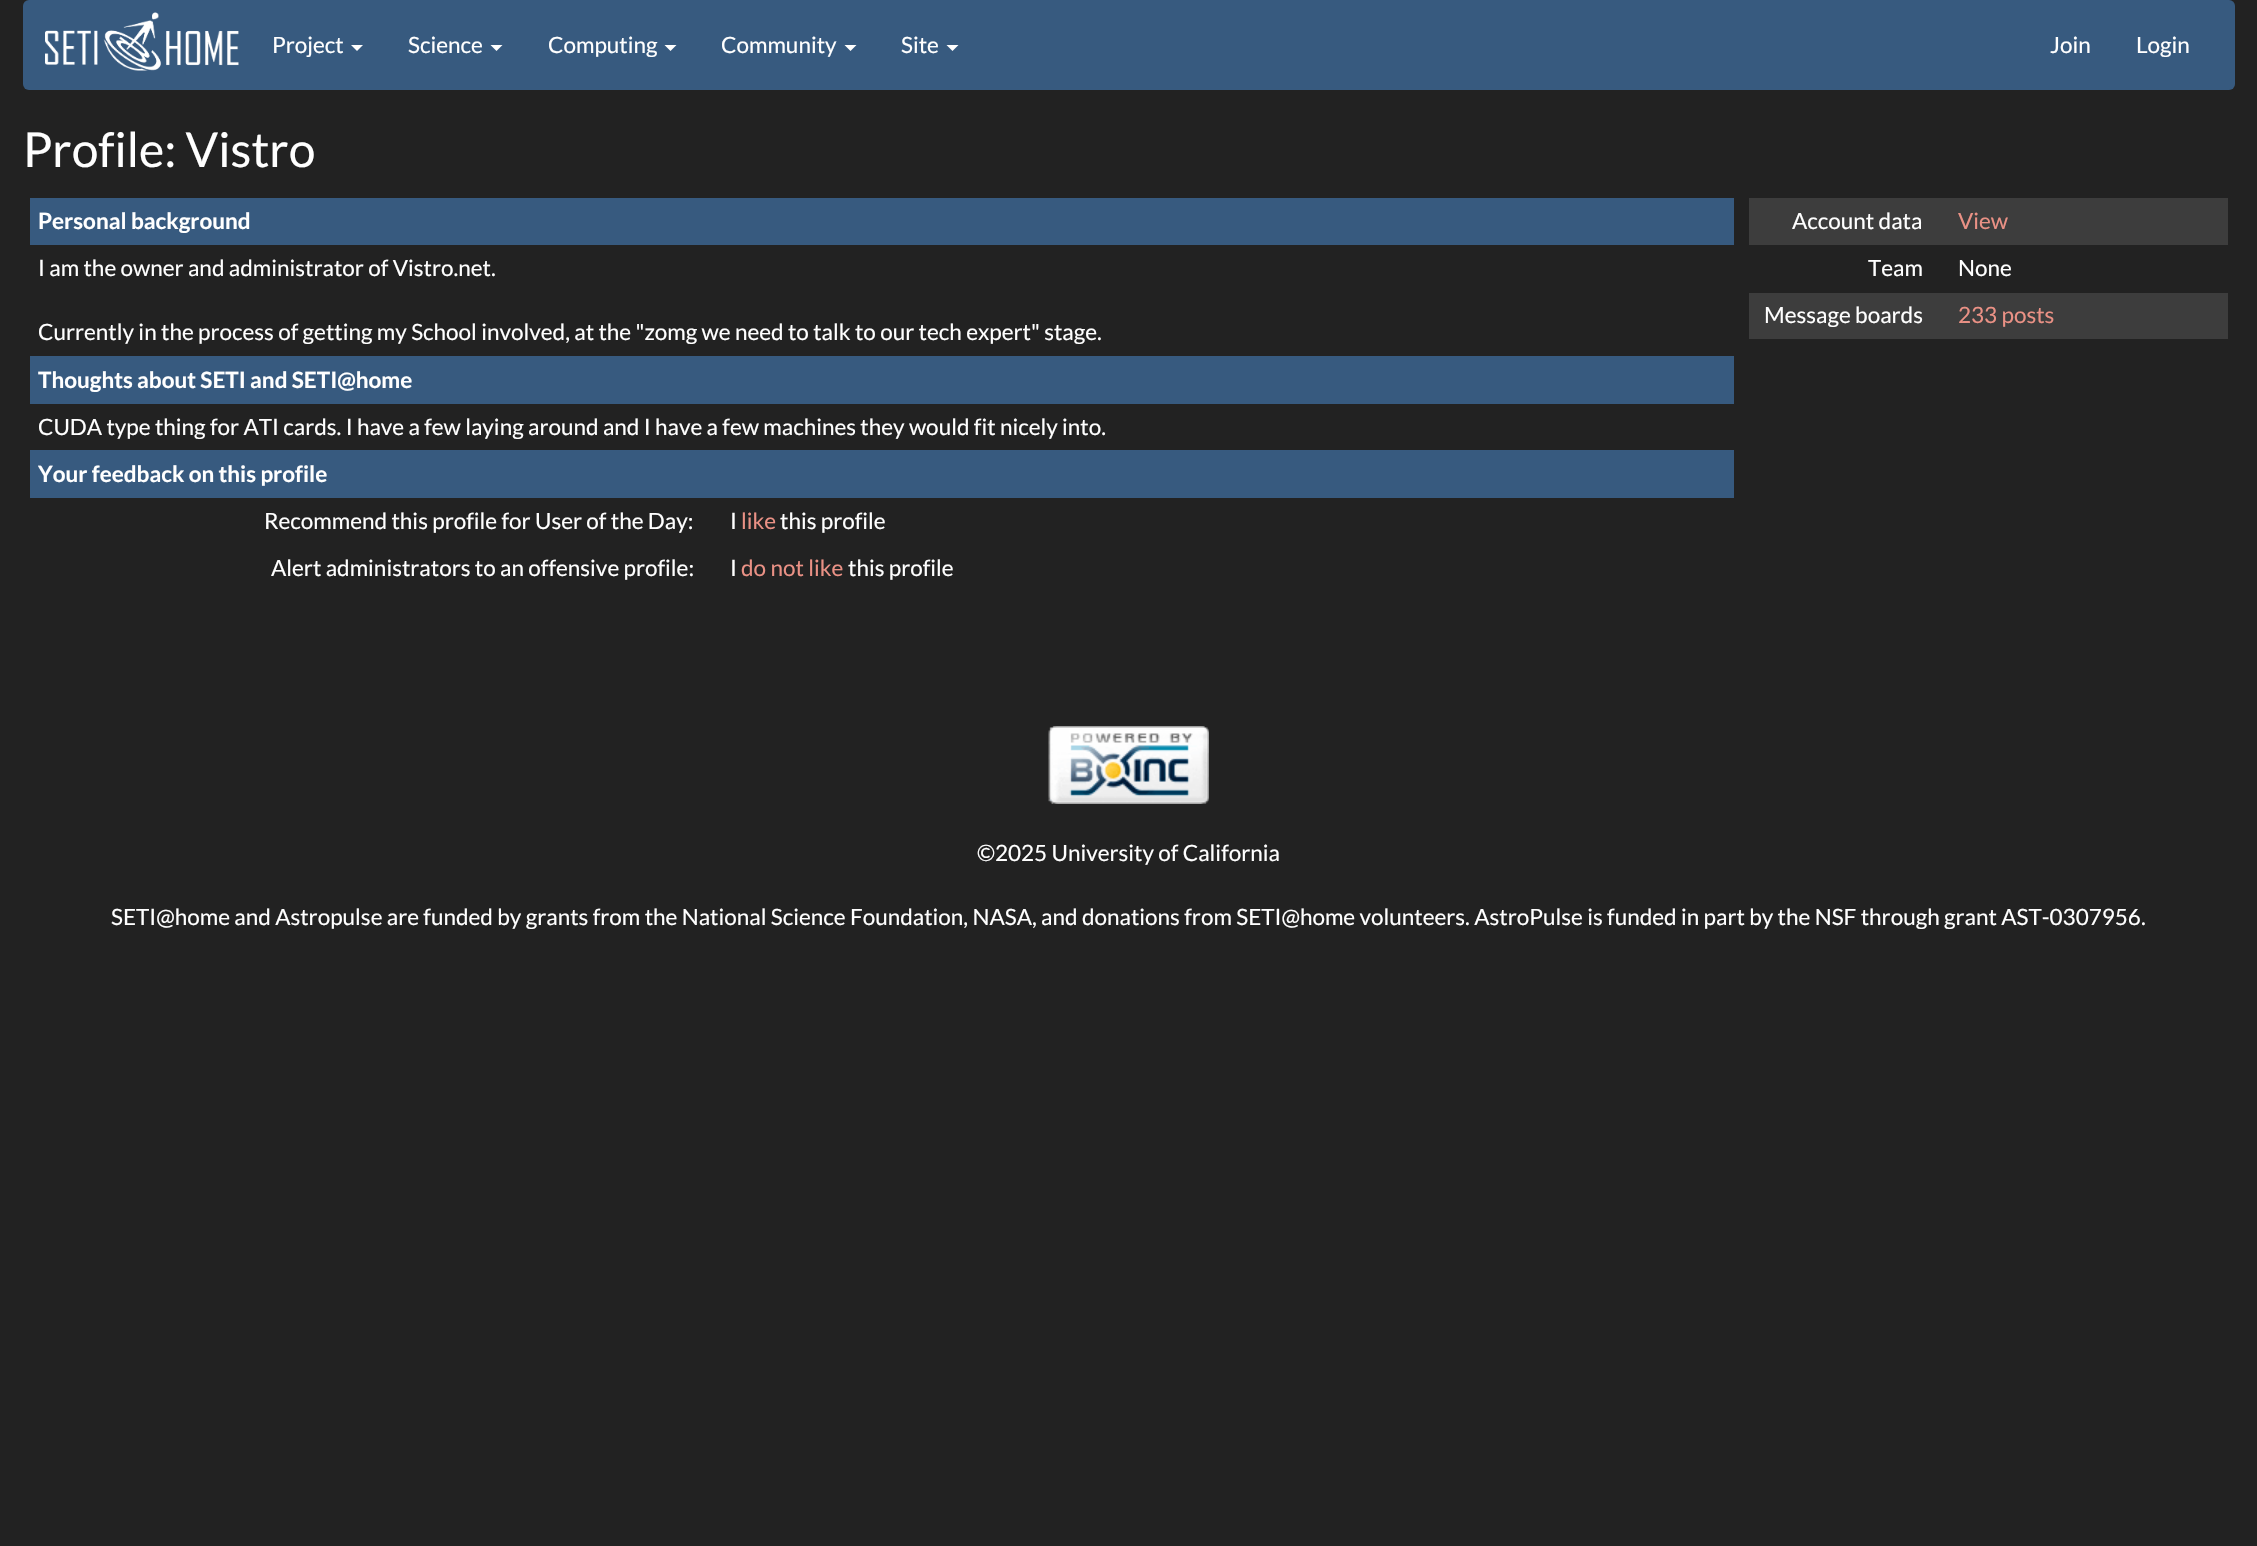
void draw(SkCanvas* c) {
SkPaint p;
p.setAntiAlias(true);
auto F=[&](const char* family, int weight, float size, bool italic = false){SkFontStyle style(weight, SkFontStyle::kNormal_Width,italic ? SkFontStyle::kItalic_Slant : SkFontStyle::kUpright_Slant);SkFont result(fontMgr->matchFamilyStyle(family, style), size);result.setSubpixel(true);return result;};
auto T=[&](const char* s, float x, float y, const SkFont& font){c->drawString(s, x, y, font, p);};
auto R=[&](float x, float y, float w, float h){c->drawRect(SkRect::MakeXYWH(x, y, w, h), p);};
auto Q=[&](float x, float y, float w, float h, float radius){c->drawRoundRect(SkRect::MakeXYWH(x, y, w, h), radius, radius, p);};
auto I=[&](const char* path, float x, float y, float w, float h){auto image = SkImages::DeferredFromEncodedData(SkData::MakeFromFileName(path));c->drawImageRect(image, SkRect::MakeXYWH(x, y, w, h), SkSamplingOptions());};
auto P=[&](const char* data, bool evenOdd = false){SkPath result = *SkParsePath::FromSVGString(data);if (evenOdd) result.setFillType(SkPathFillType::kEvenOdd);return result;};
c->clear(0xff222222);
p.setColor(0xff375a7f);
Q(23,0,2212,90,6);
I("1.png",45,12,194,59);
auto f1 = F("Lato",400,22.5);
p.setColor(0xffffffff);
T("Project",272,53,f1);
c->drawPath(P("M351 45h12l-6 6z"),p);
T("Science",408,53,f1);
c->drawPath(P("M490.5 45h12l-6 6z"),p);
T("Computing",548,53,f1);
c->drawPath(P("M664.5 45h12l-6 6z"),p);
T("Community",721,53,f1);
c->drawPath(P("M844.5 45h12l-6 6z"),p);
T("Site",901,53,f1);
c->drawPath(P("M946.5 45h12l-6 6z"),p);
T("Join",2050,53,f1);
T("Login",2136,53,f1);
auto f2 = F("Lato",400,48);
T("Profile: Vistro",23,167,f2);
p.setColor(0xff375a7f);
R(30,198,1704,47);
auto f3 = F("Lato",700,22.5);
p.setColor(0xffffffff);
T("Personal background",38,229,f3);
T("I am the owner and administrator of Vistro.net.",38,276,f1);
T("Currently in the process of getting my School involved, at the \"zomg we need to talk to our tech expert\" stage.",38,340,f1);
p.setColor(0xff375a7f);
R(30,356,1704,48);
p.setColor(0xffffffff);
T("Thoughts about SETI and SETI@home",38,388,f3);
T("CUDA type thing for ATI cards. I have a few laying around and I have a few machines they would fit nicely into.",38,435,f1);
p.setColor(0xff375a7f);
R(30,450,1704,48);
p.setColor(0xffffffff);
T("Your feedback on this profile",38,482,f3);
T("Recommend this profile for User of the Day:",264,529,f1);
T("I",730,529,f1);
p.setColor(0xffea9185);
T("like",741,529,f1);
p.setColor(0xffffffff);
T("this profile",780,529,f1);
T("Alert administrators to an offensive profile:",271,576,f1);
T("I",730,576,f1);
p.setColor(0xffea9185);
T("do not like",741,576,f1);
p.setColor(0xffffffff);
T("this profile",848,576,f1);
p.setColor(0xff3d3d3d);
R(1749,198,479,47);
p.setColor(0xffffffff);
T("Account data",1792,229,f1);
p.setColor(0xffea9185);
T("View",1958,229,f1);
p.setColor(0xffffffff);
T("Team",1868,276,f1);
T("None",1958,276,f1);
p.setColor(0xff3d3d3d);
R(1749,293,479,46);
p.setColor(0xffffffff);
T("Message boards",1764,323,f1);
p.setColor(0xffea9185);
T("233 posts",1958,323,f1);
I("2.png",1048,726,161,78);
p.setColor(0xffffffff);
T("©2025 University of California",977,861,f1);
T("SETI@home and Astropulse are funded by grants from the National Science Foundation, NASA, and donations from SETI@home volunteers. AstroPulse is funded in part by the NSF through grant AST-0307956.",111,925,f1);
}
